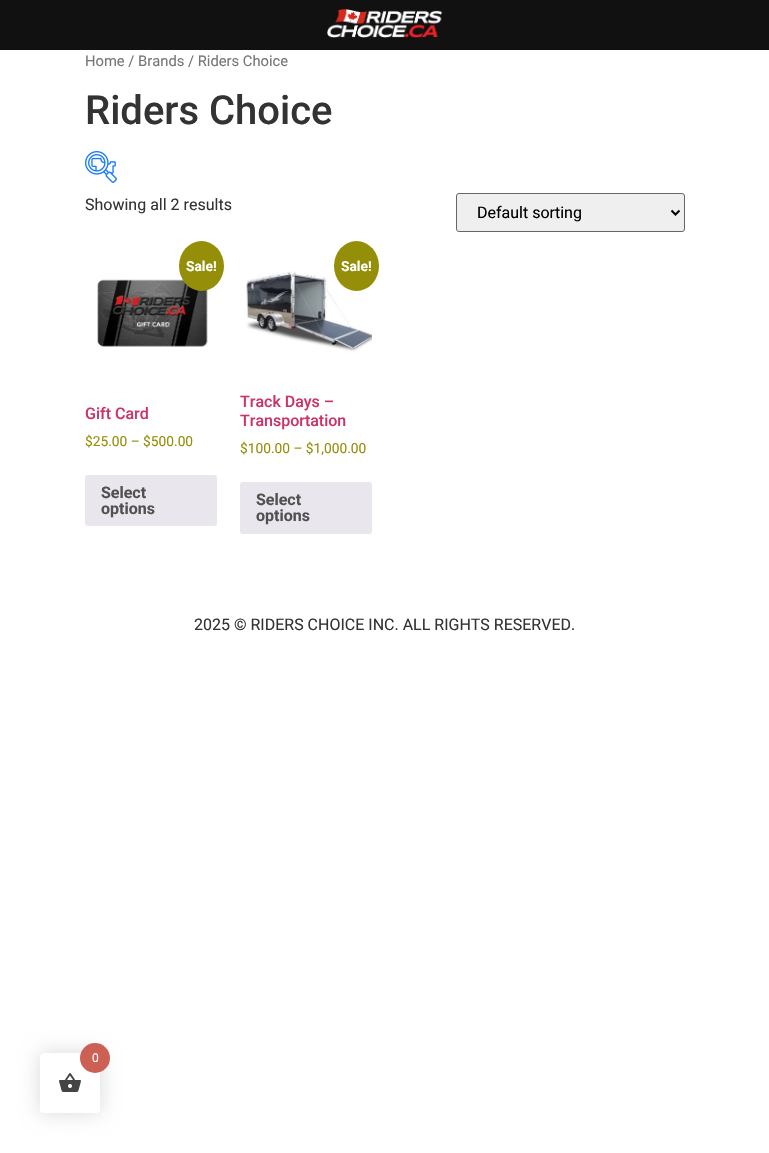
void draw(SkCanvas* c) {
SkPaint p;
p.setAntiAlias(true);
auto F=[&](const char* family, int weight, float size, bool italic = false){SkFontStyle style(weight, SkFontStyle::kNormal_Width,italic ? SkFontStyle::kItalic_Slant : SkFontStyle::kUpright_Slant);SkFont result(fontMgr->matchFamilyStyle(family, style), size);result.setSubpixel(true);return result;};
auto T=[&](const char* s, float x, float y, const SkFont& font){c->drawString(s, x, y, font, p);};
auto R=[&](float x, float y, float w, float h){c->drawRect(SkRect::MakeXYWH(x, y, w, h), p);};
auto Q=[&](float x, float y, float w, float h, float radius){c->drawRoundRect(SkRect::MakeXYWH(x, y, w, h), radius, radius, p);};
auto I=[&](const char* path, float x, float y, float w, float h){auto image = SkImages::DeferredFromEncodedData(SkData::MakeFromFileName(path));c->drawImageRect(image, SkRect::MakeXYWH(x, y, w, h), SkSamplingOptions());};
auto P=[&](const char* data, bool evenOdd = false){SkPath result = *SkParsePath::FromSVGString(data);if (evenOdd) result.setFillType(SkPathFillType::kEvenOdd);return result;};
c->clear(0xffffffff);
p.setColor(0xff111111);
R(0,0,769,50);
I("1.png",327,9,116,29);
auto f1 = F("Roboto",400,14.75);
p.setColor(0xff767676);
T("Home / Brands / Riders Choice",85,66,f1);
auto f2 = F("Roboto",500,40);
p.setColor(0xff333333);
T("Riders Choice",85,124,f2);
I("2.png",85,151,32,32);
auto f3 = F("Roboto",400,16);
T("Showing all 2 results",85,210,f3);
p.setColor(0xffefefef);
c->drawRoundRect(SkRect::MakeXYWH(456.5,193.5,228,38),2.5,2.5,p);
p.setStroke(true);
p.setStrokeWidth(1);
p.setColor(0xff666666);
c->drawRoundRect(SkRect::MakeXYWH(456.5,193.5,228,38),2.5,2.5,p);
p.setStrokeWidth(2);
p.setColor(0xff000000);
c->drawPath(P("M671.5 210.5l4 4l4-4"),p);
p.setStroke(false);
T("Default sorting",477,218,f3);
I("3.png",97,279,111,68);
p.setColor(0xff958e09);
c->drawOval(SkRect::MakeXYWH(179,241,45,50),p);
auto f4 = F("Roboto",700,13.75);
p.setColor(0xffffffff);
T("Sale!",186,271,f4);
auto f5 = F("Roboto",500,16);
p.setColor(0xffcc3366);
T("Gift Card",85,419,f5);
auto f6 = F("Roboto",400,13.75);
p.setColor(0xff958e09);
T("$25.00 – $500.00",85,446,f6);
p.setColor(0xffe9e6ed);
Q(85,475,132,51,3);
auto f7 = F("Roboto",700,16);
p.setColor(0xff515151);
T("Select",101,498,f7);
T("options",101,514,f7);
I("4.png",246,271,126,81);
p.setColor(0xff958e09);
c->drawOval(SkRect::MakeXYWH(334,241,45,50),p);
p.setColor(0xffffffff);
T("Sale!",341,271,f4);
p.setColor(0xffcc3366);
T("Track Days –",240,407,f5);
T("Transportation",240,426,f5);
p.setColor(0xff958e09);
T("$100.00 – $1,000.00",240,453,f6);
p.setColor(0xffe9e6ed);
Q(240,482,132,52,3);
p.setColor(0xff515151);
T("Select",256,505,f7);
T("options",256,521,f7);
p.setColor(0xff333333);
T("2025 © RIDERS CHOICE INC. ALL RIGHTS RESERVED.",194,630,f3);
p.setColor(0x26000000);
p.setMaskFilter(SkMaskFilter::MakeBlur(kNormal_SkBlurStyle, 10));
c->drawRoundRect(SkRect::MakeXYWH(40,1053,60,60),4,4,p);
p.setMaskFilter(nullptr);
p.setColor(0xffffffff);
Q(40,1053,60,60,4);
p.setColor(0xffcc6055);
c->drawCircle(95,1058,15,p);
auto f8 = F("Roboto",400,12);
p.setColor(0xffffffff);
T("0",92,1062,f8);
I("5.png",59,1073,22,19);
}
